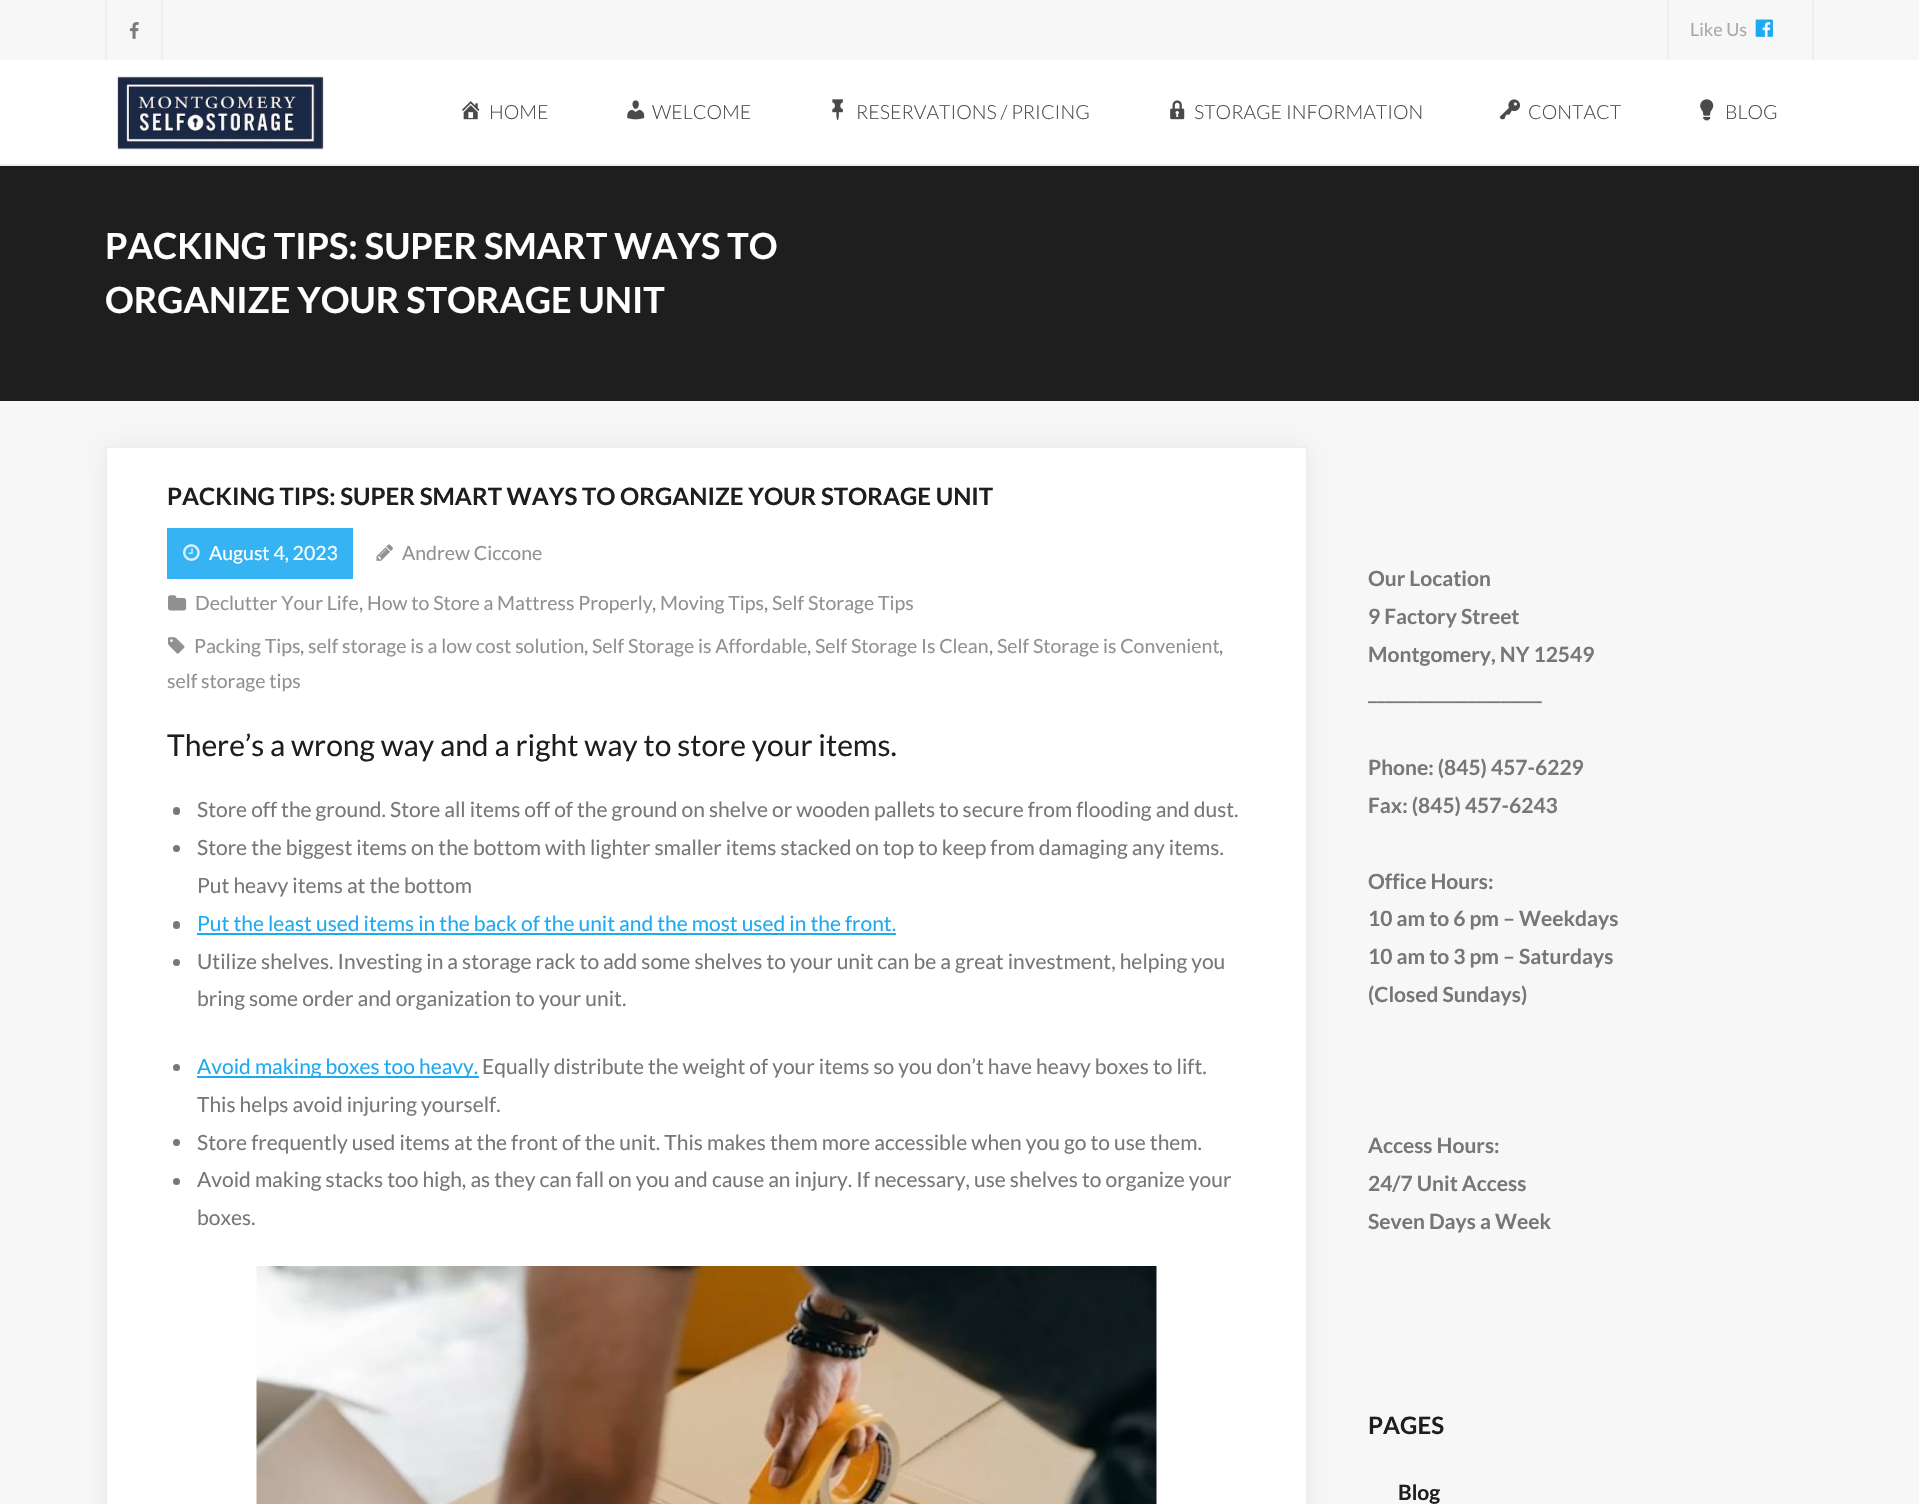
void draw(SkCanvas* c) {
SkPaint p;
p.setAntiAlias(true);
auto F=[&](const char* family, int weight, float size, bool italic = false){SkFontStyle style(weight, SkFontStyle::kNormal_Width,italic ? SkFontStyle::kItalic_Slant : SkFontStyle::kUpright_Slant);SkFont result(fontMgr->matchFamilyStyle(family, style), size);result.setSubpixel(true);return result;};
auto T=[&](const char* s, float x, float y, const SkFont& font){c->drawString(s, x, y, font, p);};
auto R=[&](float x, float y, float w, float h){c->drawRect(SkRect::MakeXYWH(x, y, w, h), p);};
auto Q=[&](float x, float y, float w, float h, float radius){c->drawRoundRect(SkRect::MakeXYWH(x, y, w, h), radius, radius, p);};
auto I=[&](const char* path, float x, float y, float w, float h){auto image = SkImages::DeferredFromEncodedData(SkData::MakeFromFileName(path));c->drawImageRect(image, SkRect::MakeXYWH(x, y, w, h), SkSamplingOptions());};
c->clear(0xfff7f7f7);
p.setColor(0xffeeeeee);
R(161,0,2,60);
R(105,0,2,60);
I("1.png",129,22,10,17);
R(1812,0,2,60);
R(1667,0,2,60);
auto f1 = F("Lato",400,18);
p.setColor(0xffaaaaaa);
T("Like Us",1690,36,f1);
I("2.png",1755,19,18,18);
p.setColor(0xffffffff);
R(0,60,1919,104);
p.setColor(0xffeeeeee);
R(0,164,1919,2);
I("3.png",115,76,210,74);
I("4.png",462,101,18,19);
auto f2 = F("Lato",300,19.5);
p.setColor(0xff4a4a4a);
T("HOME",489,119,f2);
I("5.png",627,100,18,20);
T("WELCOME",652,119,f2);
I("6.png",832,99,11,22);
T("RESERVATIONS / PRICING",856,119,f2);
I("7.png",1170,100,15,20);
T("STORAGE INFORMATION",1194,119,f2);
I("8.png",1499,99,22,21);
T("CONTACT",1528,119,f2);
I("9.png",1700,99,14,22);
T("BLOG",1725,119,f2);
p.setColor(0xff1e1e1e);
R(0,166,1919,235);
auto f3 = F("Lato",700,36);
p.setColor(0xffffffff);
T("PACKING TIPS: SUPER SMART WAYS TO",105,259,f3);
T("ORGANIZE YOUR STORAGE UNIT",105,313,f3);
p.setColor(0x0d000000);
p.setMaskFilter(SkMaskFilter::MakeBlur(kNormal_SkBlurStyle, 11));
c->drawRect(SkRect::MakeXYWH(105,446,1203,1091),p);
p.setMaskFilter(nullptr);
p.setColor(0xffffffff);
c->drawRect(SkRect::MakeXYWH(106,447,1201,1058),p);
p.setStroke(true);
p.setStrokeWidth(2);
p.setColor(0xffeeeeee);
c->drawRect(SkRect::MakeXYWH(106,447,1201,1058),p);
auto f4 = F("Lato",700,24);
p.setStroke(false);
p.setColor(0xff1e1e1e);
T("PACKING TIPS: SUPER SMART WAYS TO ORGANIZE YOUR STORAGE UNIT",167,505,f4);
p.setColor(0xff35b3f2);
R(167,528,186,51);
I("10.png",183,544,17,17);
auto f5 = F("Lato",400,19.5);
p.setColor(0xffffffff);
T("August 4, 2023",209,560,f5);
I("11.png",376,544,17,17);
p.setColor(0xff919191);
T("Andrew Ciccone",402,560,f5);
I("12.png",168,595,19,16);
T("Declutter Your Life",195,610,f5);
p.setColor(0xff858585);
T(",",359,610,f5);
p.setColor(0xff919191);
T("How to Store a Mattress Properly",367,610,f5);
p.setColor(0xff858585);
T(",",652,610,f5);
p.setColor(0xff919191);
T("Moving Tips",660,610,f5);
p.setColor(0xff858585);
T(",",764,610,f5);
p.setColor(0xff919191);
T("Self Storage Tips",772,610,f5);
I("13.png",168,637,17,17);
T("Packing Tips",194,653,f5);
p.setColor(0xff858585);
T(",",300,653,f5);
p.setColor(0xff919191);
T("self storage is a low cost solution",308,653,f5);
p.setColor(0xff858585);
T(",",584,653,f5);
p.setColor(0xff919191);
T("Self Storage is Affordable",592,653,f5);
p.setColor(0xff858585);
T(",",807,653,f5);
p.setColor(0xff919191);
T("Self Storage Is Clean",815,653,f5);
p.setColor(0xff858585);
T(",",989,653,f5);
p.setColor(0xff919191);
T("Self Storage is Convenient",997,653,f5);
p.setColor(0xff858585);
T(",",1219,653,f5);
p.setColor(0xff919191);
T("self storage tips",167,688,f5);
auto f6 = F("Lato",400,30);
p.setColor(0xff1e1e1e);
T("There’s a wrong way and a right way to store your items.",167,756,f6);
p.setColor(0xff777777);
Q(173,807,7,8,3.5);
auto f7 = F("Lato",400,21);
T("Store off the ground. Store all items off of the ground on shelve or wooden pallets to secure from flooding and dust.",197,817,f7);
c->drawCircle(176.5,848.5,3.5,p);
T("Store the biggest items on the bottom with lighter smaller items stacked on top to keep from damaging any items.",197,855,f7);
T("Put heavy items at the bottom",197,893,f7);
Q(173,921,7,8,3.5);
p.setColor(0xff1eaaf1);
T("Put the least used items in the back of the unit and the most used in the front.",197,931,f7);
R(197,933,699,2);
p.setColor(0xff777777);
c->drawCircle(176.5,962.5,3.5,p);
T("Utilize shelves. Investing in a storage rack to add some shelves to your unit can be a great investment, helping you",197,969,f7);
T("bring some order and organization to your unit.",197,1006,f7);
c->drawCircle(176.5,1067.5,3.5,p);
p.setColor(0xff1eaaf1);
R(197,1076,282,2);
T("Avoid making boxes too heavy.",197,1074,f7);
p.setColor(0xff777777);
T("Equally distribute the weight of your items so you don’t have heavy boxes to lift.",482,1074,f7);
T("This helps avoid injuring yourself.",197,1112,f7);
c->drawCircle(176.5,1142.5,3.5,p);
T("Store frequently used items at the front of the unit. This makes them more accessible when you go to use them.",197,1150,f7);
c->drawCircle(176.5,1181.5,3.5,p);
T("Avoid making stacks too high, as they can fall on you and cause an injury. If necessary, use shelves to organize your",197,1187,f7);
T("boxes.",197,1225,f7);
I("14.png",256,1266,901,238);
auto f8 = F("Lato",700,21);
T("Our Location",1368,586,f8);
T("9 Factory Street",1368,624,f8);
T("Montgomery, NY 12549",1368,662,f8);
T("_____________________",1368,700,f8);
T("Phone: (845) 457-6229",1368,775,f8);
T("Fax: (845) 457-6243",1368,813,f8);
T("Office Hours:",1368,889,f8);
T("10 am to 6 pm – Weekdays",1368,926,f8);
T("10 am to 3 pm – Saturdays",1368,964,f8);
T("(Closed Sundays)",1368,1002,f8);
T("Access Hours:",1368,1153,f8);
T("24/7 Unit Access",1368,1191,f8);
T("Seven Days a Week",1368,1229,f8);
p.setColor(0xff1e1e1e);
T("PAGES",1368,1434,f4);
T("Blog",1398,1500,f8);
}
